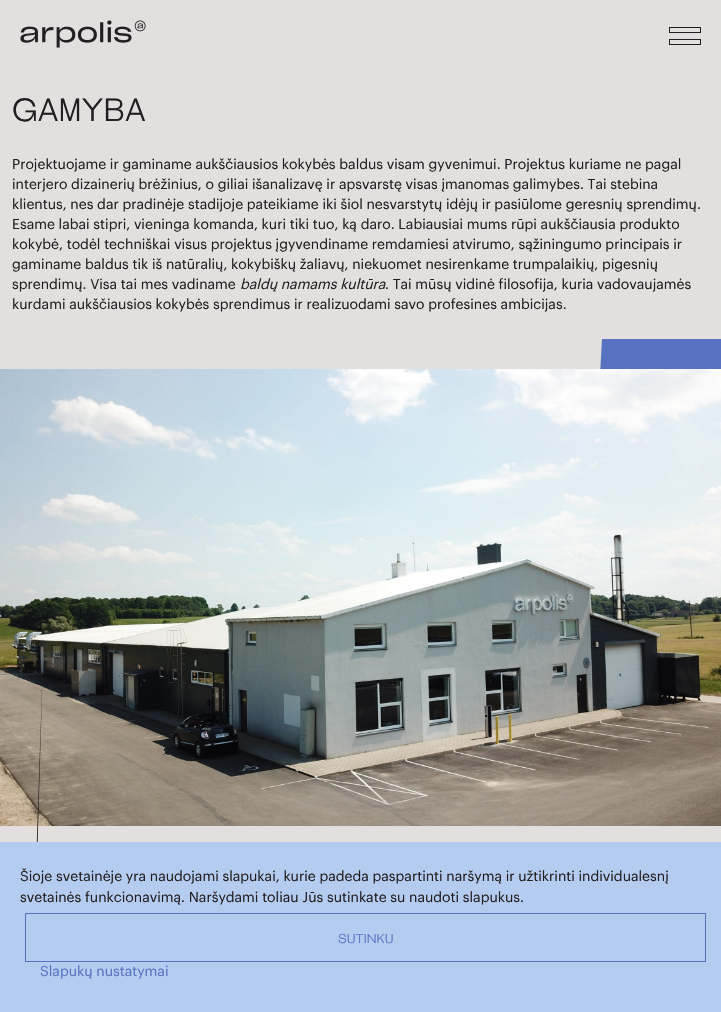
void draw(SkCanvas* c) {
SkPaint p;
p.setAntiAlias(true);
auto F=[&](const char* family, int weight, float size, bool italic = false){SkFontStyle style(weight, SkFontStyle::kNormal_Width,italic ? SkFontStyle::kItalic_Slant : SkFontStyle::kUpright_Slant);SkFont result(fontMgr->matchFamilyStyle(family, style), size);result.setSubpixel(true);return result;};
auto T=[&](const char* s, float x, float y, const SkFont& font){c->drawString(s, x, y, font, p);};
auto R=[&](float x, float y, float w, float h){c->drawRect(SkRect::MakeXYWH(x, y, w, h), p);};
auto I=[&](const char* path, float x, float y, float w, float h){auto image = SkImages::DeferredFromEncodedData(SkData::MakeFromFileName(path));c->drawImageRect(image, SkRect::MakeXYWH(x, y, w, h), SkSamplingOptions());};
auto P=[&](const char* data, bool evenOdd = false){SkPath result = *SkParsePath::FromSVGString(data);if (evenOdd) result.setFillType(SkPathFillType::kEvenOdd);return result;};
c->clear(0xffe2dfde);
I("1.png",669,27,32,18);
I("2.png",20,20,126,28);
auto f1 = F("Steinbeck",400,32);
p.setColor(0xff231f20);
T("GAMYBA",12,121,f1);
auto f2 = F("Graphik",400,14);
T("Projektuojame ir gaminame aukščiausios kokybės baldus visam gyvenimui. Projektus kuriame ne pagal",12,169,f2);
T("interjero dizainerių brėžinius, o giliai išanalizavę ir apsvarstę visas įmanomas galimybes. Tai stebina",12,189,f2);
T("klientus, nes dar pradinėje stadijoje pateikiame iki šiol nesvarstytų idėjų ir pasiūlome geresnių sprendimų.",12,209,f2);
T("Esame labai stipri, vieninga komanda, kuri tiki tuo, ką daro. Labiausiai mums rūpi aukščiausia produkto",12,229,f2);
T("kokybė, todėl techniškai visus projektus įgyvendiname remdamiesi atvirumo, sąžiningumo principais ir",12,249,f2);
T("gaminame baldus tik iš natūralių, kokybiškų žaliavų, niekuomet nesirenkame trumpalaikių, pigesnių",12,269,f2);
T("sprendimų. Visa tai mes vadiname",12,289,f2);
auto f3 = F("Graphik",400,14,true);
T("baldų namams kultūra",240,289,f3);
T(". Tai mūsų vidinė filosofija, kuria vadovaujamės",385,289,f2);
T("kurdami aukščiausios kokybės sprendimus ir realizuodami savo profesines ambicijas.",12,309,f2);
p.setColor(0xff5672c1);
c->drawPath(P("M602 339h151v160h-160z"),p);
I("3.png",0,369,721,457);
p.setColor(0xff231f20);
c->drawPath(P("M36 865l7-207h-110v207h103m1 0h-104v-207h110z"),p);
p.setColor(0xffb4ccef);
R(0,842,721,170);
p.setColor(0xff231f20);
T("Šioje svetainėje yra naudojami slapukai, kurie padeda paspartinti naršymą ir užtikrinti individualesnį",20,881,f2);
T("svetainės funkcionavimą. Naršydami toliau Jūs sutinkate su naudoti slapukus.",20,902,f2);
p.setStroke(true);
p.setStrokeWidth(1);
p.setColor(0xff5672c1);
c->drawRect(SkRect::MakeXYWH(25.5,913.5,680,48),p);
auto f4 = F("Steinbeck",400,13);
p.setStroke(false);
T("SUTINKU",338,943,f4);
T("Slapukų nustatymai",40,976,f2);
}
